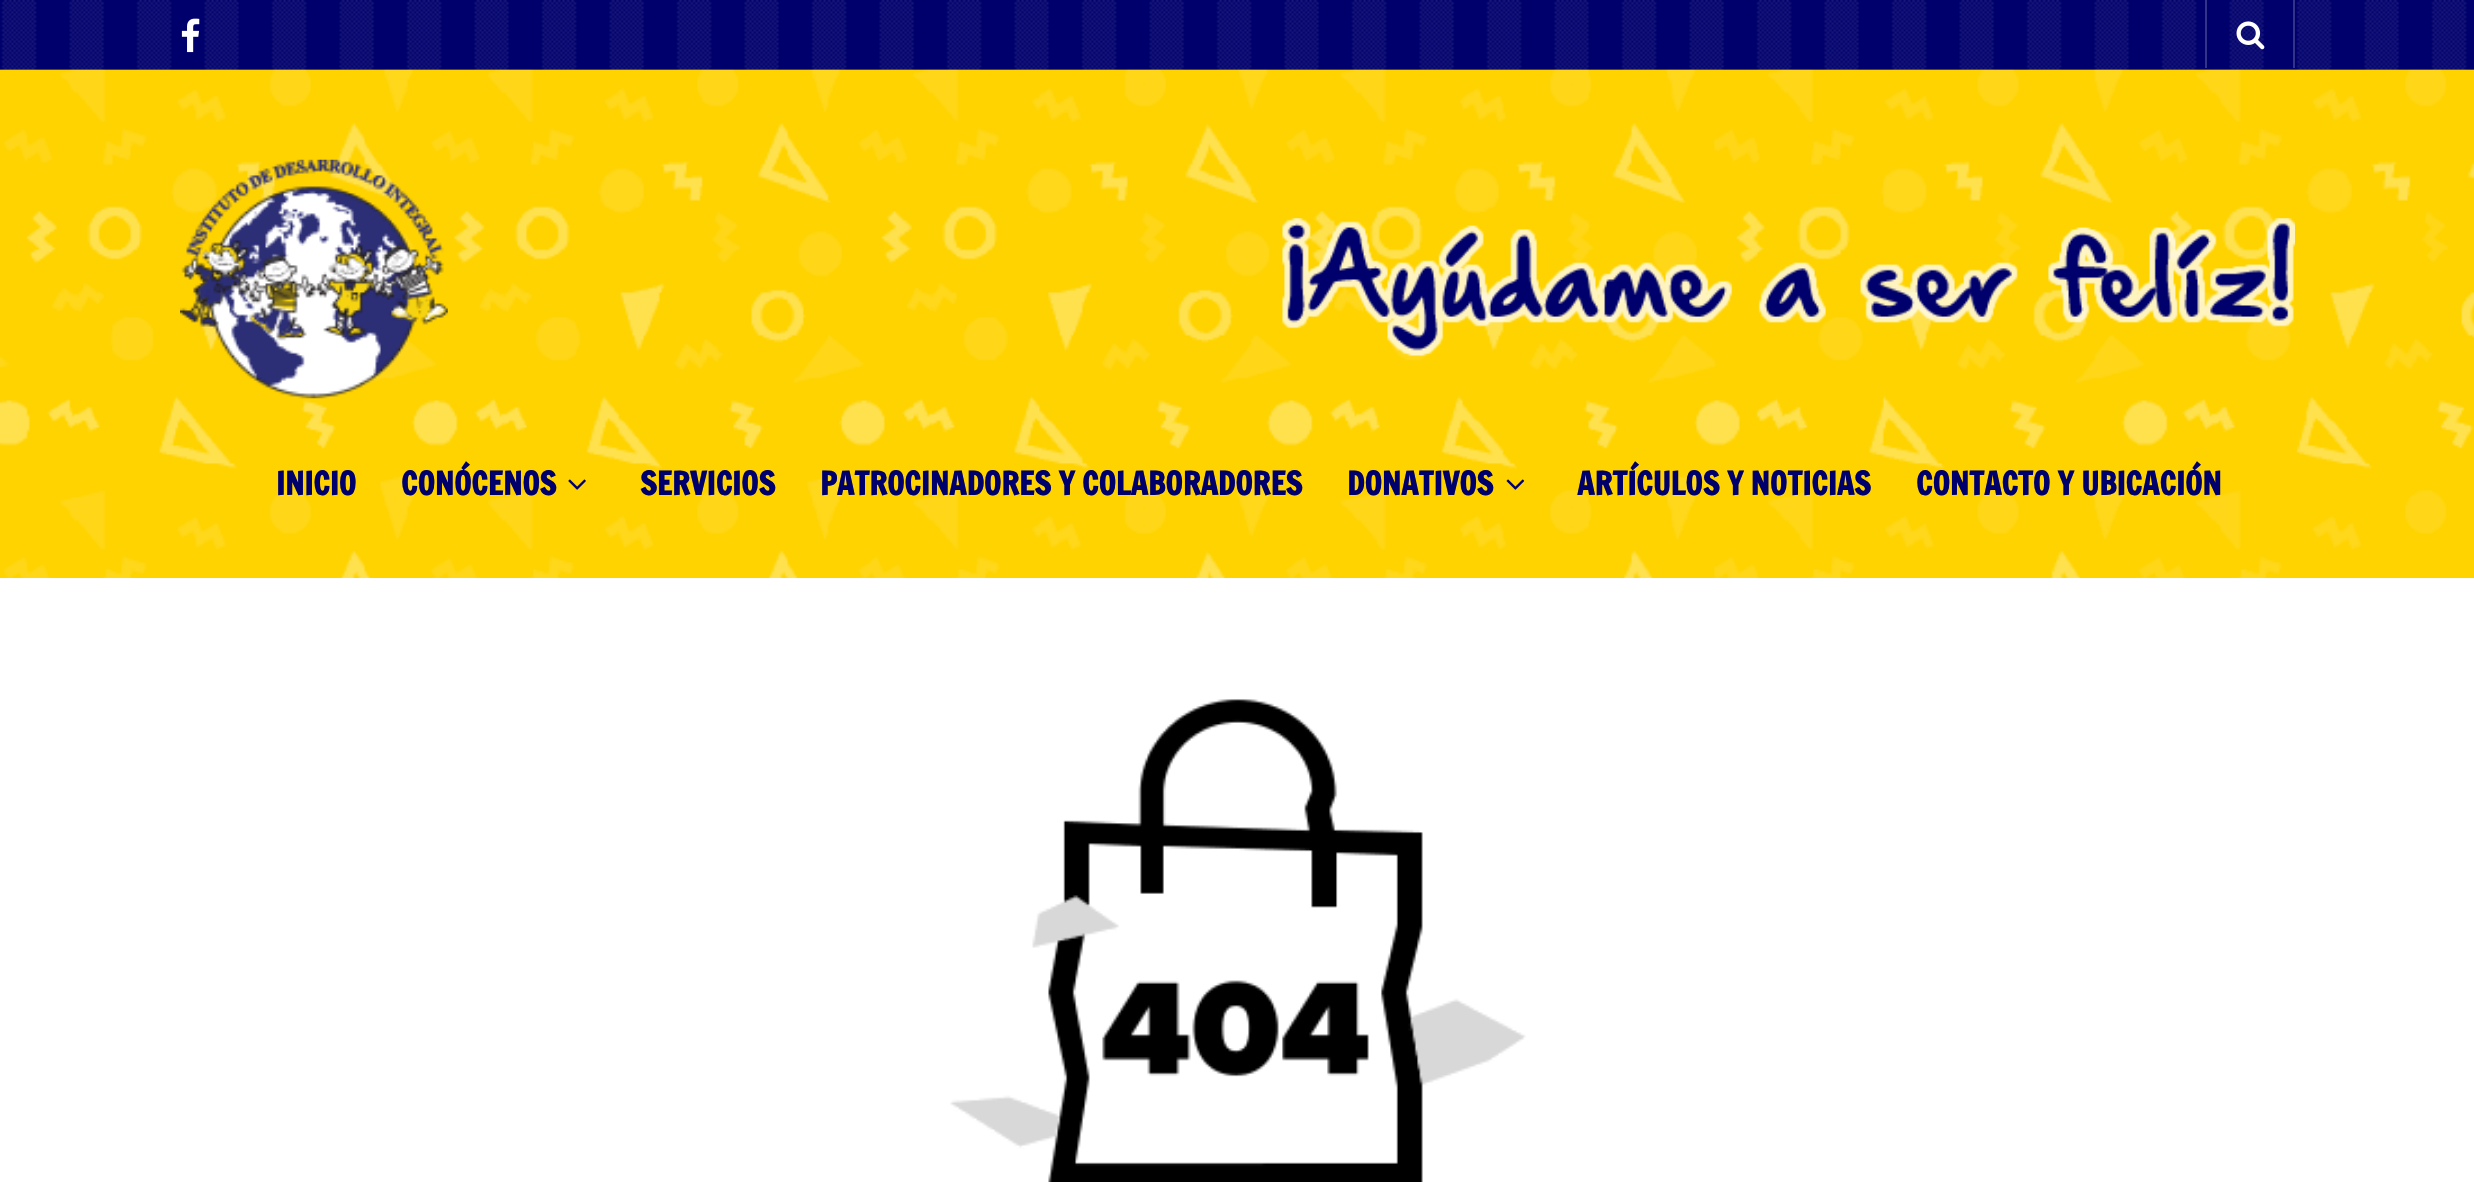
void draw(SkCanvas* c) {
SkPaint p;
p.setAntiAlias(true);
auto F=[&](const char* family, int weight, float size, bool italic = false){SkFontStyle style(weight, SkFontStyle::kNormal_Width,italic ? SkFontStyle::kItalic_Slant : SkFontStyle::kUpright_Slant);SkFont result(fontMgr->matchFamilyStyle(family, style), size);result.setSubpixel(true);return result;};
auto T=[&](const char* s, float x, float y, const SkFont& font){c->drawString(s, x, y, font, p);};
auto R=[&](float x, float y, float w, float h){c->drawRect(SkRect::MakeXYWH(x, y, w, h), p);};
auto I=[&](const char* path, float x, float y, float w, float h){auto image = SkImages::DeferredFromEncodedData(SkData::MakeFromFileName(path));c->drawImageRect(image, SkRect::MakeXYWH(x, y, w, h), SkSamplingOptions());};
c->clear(0xffffffff);
I("1.png",0,0,2474,70);
I("2.png",181,18,19,35);
p.setColor(0xff333389);
R(2293,0,2,68);
R(2205,0,2,68);
I("3.png",2236,21,29,29);
p.setColor(0xffffd300);
R(0,70,2474,508);
I("4.png",0,69,2474,509);
I("5.png",180,159,268,240);
I("6.png",1282,218,1013,138);
auto f1 = F("Francois One",700,31.5);
p.setColor(0xff00006c);
T("INICIO",276,495,f1);
T("CONÓCENOS",401,495,f1);
I("7.png",568,479,18,11);
T("SERVICIOS",640,495,f1);
T("PATROCINADORES Y COLABORADORES",820,495,f1);
T("DONATIVOS",1347,495,f1);
I("8.png",1506,479,19,11);
T("ARTÍCULOS Y NOTICIAS",1577,495,f1);
T("CONTACTO Y UBICACIÓN",1916,495,f1);
I("9.png",950,699,576,483);
}
